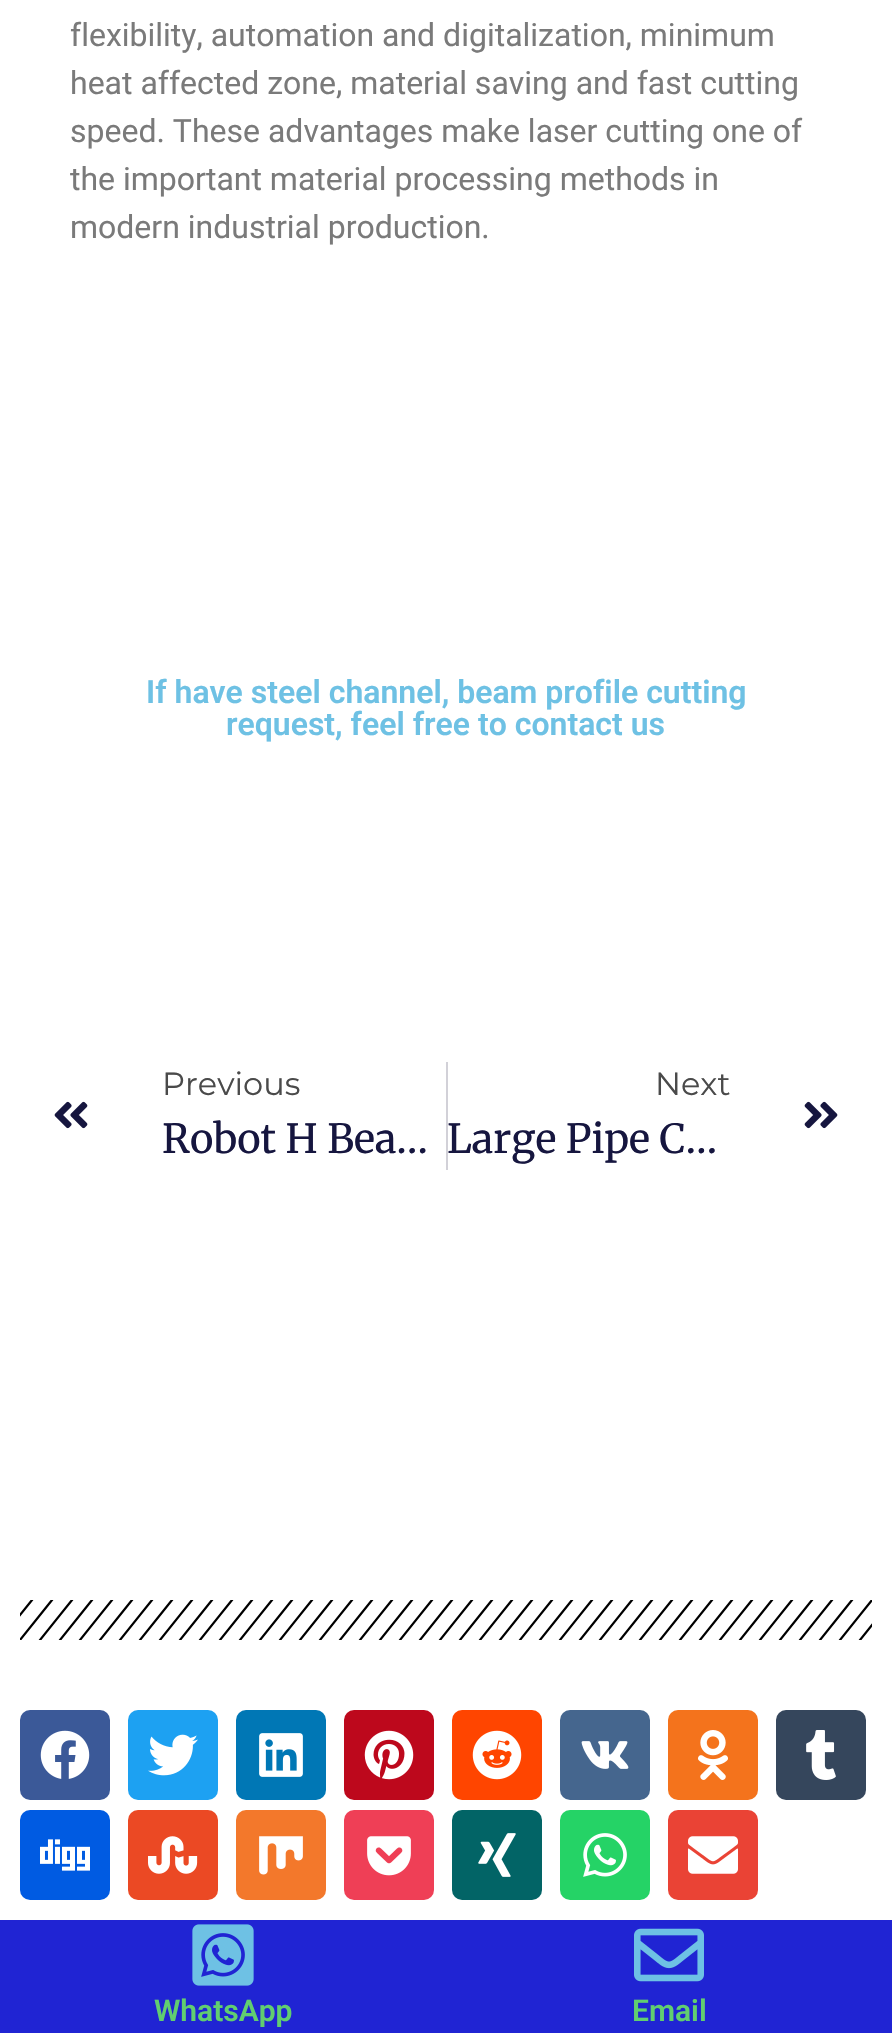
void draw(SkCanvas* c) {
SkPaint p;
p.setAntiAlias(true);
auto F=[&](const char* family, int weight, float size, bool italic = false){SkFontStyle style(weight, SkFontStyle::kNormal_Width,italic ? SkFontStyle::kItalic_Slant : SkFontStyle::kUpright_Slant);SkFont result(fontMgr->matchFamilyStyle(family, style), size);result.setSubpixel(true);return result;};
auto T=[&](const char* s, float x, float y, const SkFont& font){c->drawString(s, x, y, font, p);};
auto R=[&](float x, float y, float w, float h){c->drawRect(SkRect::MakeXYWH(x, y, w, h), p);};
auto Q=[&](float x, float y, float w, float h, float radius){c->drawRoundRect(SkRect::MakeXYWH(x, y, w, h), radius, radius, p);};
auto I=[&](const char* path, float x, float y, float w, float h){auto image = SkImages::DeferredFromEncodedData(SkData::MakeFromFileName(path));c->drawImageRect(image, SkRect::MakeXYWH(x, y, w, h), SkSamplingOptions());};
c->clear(0xffffffff);
auto f1 = F("Roboto",400,32);
p.setColor(0xff7a7a7a);
T("flexibility, automation and digitalization, minimum",70,46,f1);
T("heat affected zone, material saving and fast cutting",70,94,f1);
T("speed. These advantages make laser cutting one of",70,142,f1);
T("the important material processing methods in",70,190,f1);
T("modern industrial production.",70,238,f1);
auto f2 = F("Roboto",600,32);
p.setColor(0xff6ec1e4);
T("If have steel channel, beam profile cutting",146,703,f2);
T("request, feel free to contact us",226,735,f2);
I("1.png",54,1101,34,28);
auto f3 = F("Montserrat",400,32);
p.setColor(0xff4a4a4a);
T("Previous",162,1095,f3);
auto f4 = F("Merriweather",400,40);
p.setColor(0xff16163f);
T("Robot H Bea…",162,1153,f4);
p.setColor(0xffd2d1d8);
R(446,1062,2,108);
p.setColor(0xff4a4a4a);
T("Next",655,1095,f3);
p.setColor(0xff16163f);
T("Large Pipe C…",447,1153,f4);
I("2.png",804,1101,34,28);
I("3.png",20,1600,852,40);
p.setColor(0xff3b5998);
Q(20,1710,90,90,10);
I("4.png",40,1730,50,49);
p.setColor(0xff1da1f2);
Q(128,1710,90,90,10);
I("5.png",148,1734,50,42);
p.setColor(0xff0077b5);
Q(236,1710,90,90,10);
I("6.png",259,1733,44,44);
p.setColor(0xffbd081c);
Q(344,1710,90,90,10);
I("7.png",364,1730,50,50);
p.setColor(0xffff4500);
Q(452,1710,90,90,10);
I("8.png",472,1730,50,50);
p.setColor(0xff45668e);
Q(560,1710,90,90,10);
I("9.png",581,1741,48,28);
p.setColor(0xfff4731c);
Q(668,1710,90,90,10);
I("10.png",698,1730,30,50);
p.setColor(0xff35465c);
Q(776,1710,90,90,10);
I("11.png",806,1730,30,50);
p.setColor(0xff005be2);
Q(20,1810,90,90,10);
I("12.png",40,1839,50,32);
p.setColor(0xffeb4924);
Q(128,1810,90,90,10);
I("13.png",148,1836,50,38);
p.setColor(0xfff3782b);
Q(236,1810,90,90,10);
I("14.png",259,1836,44,39);
p.setColor(0xffef3f56);
Q(344,1810,90,90,10);
I("15.png",367,1836,44,40);
p.setColor(0xff026466);
Q(452,1810,90,90,10);
I("16.png",478,1833,38,44);
p.setColor(0xff25d366);
Q(560,1810,90,90,10);
I("17.png",583,1833,44,44);
p.setColor(0xffea4335);
Q(668,1810,90,90,10);
I("18.png",688,1836,50,38);
p.setColor(0xff2024d3);
R(0,1920,892,113);
I("19.png",192,1924,62,62);
auto f5 = F("Roboto",600,30);
p.setColor(0xff61ce70);
T("WhatsApp",154,2021,f5);
I("20.png",634,1928,70,54);
T("Email",632,2021,f5);
}
